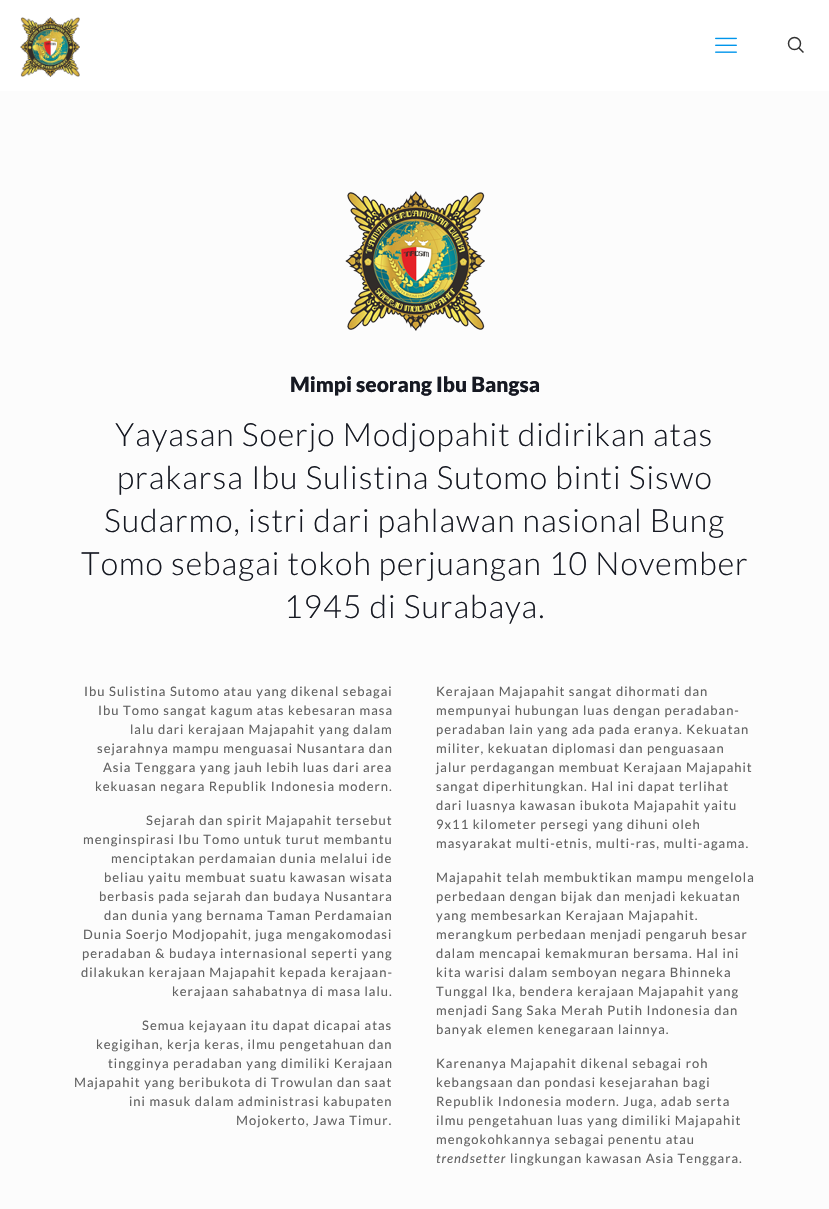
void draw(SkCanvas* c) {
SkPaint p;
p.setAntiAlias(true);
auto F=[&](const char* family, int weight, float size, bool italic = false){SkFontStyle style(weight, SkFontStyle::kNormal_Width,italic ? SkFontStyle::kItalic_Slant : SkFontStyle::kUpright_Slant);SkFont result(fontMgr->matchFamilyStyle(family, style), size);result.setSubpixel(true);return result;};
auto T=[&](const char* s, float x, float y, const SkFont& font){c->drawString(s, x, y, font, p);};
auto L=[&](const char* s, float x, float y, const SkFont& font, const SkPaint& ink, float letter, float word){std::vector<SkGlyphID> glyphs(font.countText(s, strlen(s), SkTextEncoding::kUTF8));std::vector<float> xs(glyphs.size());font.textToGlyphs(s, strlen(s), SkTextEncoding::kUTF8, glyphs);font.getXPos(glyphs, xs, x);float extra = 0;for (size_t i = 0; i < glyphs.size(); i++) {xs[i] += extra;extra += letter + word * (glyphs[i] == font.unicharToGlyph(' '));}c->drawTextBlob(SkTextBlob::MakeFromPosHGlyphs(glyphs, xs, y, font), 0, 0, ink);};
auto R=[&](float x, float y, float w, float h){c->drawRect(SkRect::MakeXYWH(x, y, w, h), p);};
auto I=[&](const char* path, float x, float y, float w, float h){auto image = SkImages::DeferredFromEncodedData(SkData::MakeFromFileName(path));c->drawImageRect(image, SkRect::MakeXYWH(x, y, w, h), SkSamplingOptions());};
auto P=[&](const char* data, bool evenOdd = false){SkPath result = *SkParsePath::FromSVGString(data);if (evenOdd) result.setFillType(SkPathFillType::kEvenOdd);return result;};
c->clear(0xfffcfcfc);
p.setColor(0xffffffff);
R(0,0,829,91);
I("1.png",20,17,60,60);
I("2.png",715,37,22,16);
p.setStroke(true);
p.setStrokeWidth(1.5);
p.setColor(0xff333333);
c->drawCircle(794.5,43.5,6,p);
c->drawPath(P("M798.5 47.5l5 5"),p);
I("3.png",345,191,140,140);
auto f1 = F("Lato",900,21);
p.setStroke(false);
p.setColor(0xff161922);
T("Mimpi seorang Ibu Bangsa",290,392,f1);
auto f2 = F("Lato",300,32);
L("Yayasan Soerjo Modjopahit didirikan atas",115,446,f2,p,1,0);
L("prakarsa Ibu Sulistina Sutomo binti Siswo",117,489,f2,p,1,0);
L("Sudarmo, istri dari pahlawan nasional Bung",104,532,f2,p,1,0);
L("Tomo sebagai tokoh perjuangan 10 November",81,575,f2,p,1,0);
L("1945 di Surabaya.",284,618,f2,p,1,0);
auto f3 = F("Lato",400,13);
p.setColor(0xff626262);
L("Ibu Sulistina Sutomo atau yang dikenal sebagai",84,696,f3,p,1,0);
L("Ibu Tomo sangat kagum atas kebesaran masa",98,715,f3,p,1,0);
L("lalu dari kerajaan Majapahit yang dalam",130,734,f3,p,1,0);
L("sejarahnya mampu menguasai Nusantara dan",97,753,f3,p,1,0);
L("Asia Tenggara yang jauh lebih luas dari area",103,772,f3,p,1,0);
L("kekuasan negara Republik Indonesia modern.",95,791,f3,p,1,0);
L("Sejarah dan spirit Majapahit tersebut",146,825,f3,p,1,0);
L("menginspirasi Ibu Tomo untuk turut membantu",83,844,f3,p,1,0);
L("menciptakan perdamaian dunia melalui ide",111,863,f3,p,1,0);
L("beliau yaitu membuat suatu kawasan wisata",104,882,f3,p,1,0);
L("berbasis pada sejarah dan budaya Nusantara",99,901,f3,p,1,0);
L("dan dunia yang bernama Taman Perdamaian",104,920,f3,p,1,0);
L("Dunia Soerjo Modjopahit, juga mengakomodasi",83,939,f3,p,1,0);
L("peradaban & budaya internasional seperti yang",82,958,f3,p,1,0);
L("dilakukan kerajaan Majapahit kepada kerajaan-",81,977,f3,p,1,0);
L("kerajaan sahabatnya di masa lalu.",172,996,f3,p,1,0);
L("Semua kejayaan itu dapat dicapai atas",142,1030,f3,p,1,0);
L("kegigihan, kerja keras, ilmu pengetahuan dan",96,1049,f3,p,1,0);
L("tingginya peradaban yang dimiliki Kerajaan",108,1068,f3,p,1,0);
L("Majapahit yang beribukota di Trowulan dan saat",74,1087,f3,p,1,0);
L("ini masuk dalam administrasi kabupaten",129,1106,f3,p,1,0);
L("Mojokerto, Jawa Timur.",236,1125,f3,p,1,0);
L("Kerajaan Majapahit sangat dihormati dan",436,696,f3,p,1,0);
L("mempunyai hubungan luas dengan peradaban-",436,715,f3,p,1,0);
L("peradaban lain yang ada pada eranya. Kekuatan",436,734,f3,p,1,0);
L("militer, kekuatan diplomasi dan penguasaan",436,753,f3,p,1,0);
L("jalur perdagangan membuat Kerajaan Majapahit",436,772,f3,p,1,0);
L("sangat diperhitungkan. Hal ini dapat terlihat",436,791,f3,p,1,0);
L("dari luasnya kawasan ibukota Majapahit yaitu",436,810,f3,p,1,0);
L("9x11 kilometer persegi yang dihuni oleh",436,829,f3,p,1,0);
L("masyarakat multi-etnis, multi-ras, multi-agama.",436,848,f3,p,1,0);
L("Majapahit telah membuktikan mampu mengelola",436,882,f3,p,1,0);
L("perbedaan dengan bijak dan menjadi kekuatan",436,901,f3,p,1,0);
L("yang membesarkan Kerajaan Majapahit.",436,920,f3,p,1,0);
L("merangkum perbedaan menjadi pengaruh besar",436,939,f3,p,1,0);
L("dalam mencapai kemakmuran bersama. Hal ini",436,958,f3,p,1,0);
L("kita warisi dalam semboyan negara Bhinneka",436,977,f3,p,1,0);
L("Tunggal Ika, bendera kerajaan Majapahit yang",436,996,f3,p,1,0);
L("menjadi Sang Saka Merah Putih Indonesia dan",436,1015,f3,p,1,0);
L("banyak elemen kenegaraan lainnya.",436,1034,f3,p,1,0);
L("Karenanya Majapahit dikenal sebagai roh",436,1068,f3,p,1,0);
L("kebangsaan dan pondasi kesejarahan bagi",436,1087,f3,p,1,0);
L("Republik Indonesia modern. Juga, adab serta",436,1106,f3,p,1,0);
L("ilmu pengetahuan luas yang dimiliki Majapahit",436,1125,f3,p,1,0);
L("mengokohkannya sebagai penentu atau",436,1144,f3,p,1,0);
auto f4 = F("Lato",400,13,true);
L("trendsetter",436,1163,f4,p,1,0);
L("lingkungan kawasan Asia Tenggara.",510,1163,f3,p,1,0);
}
